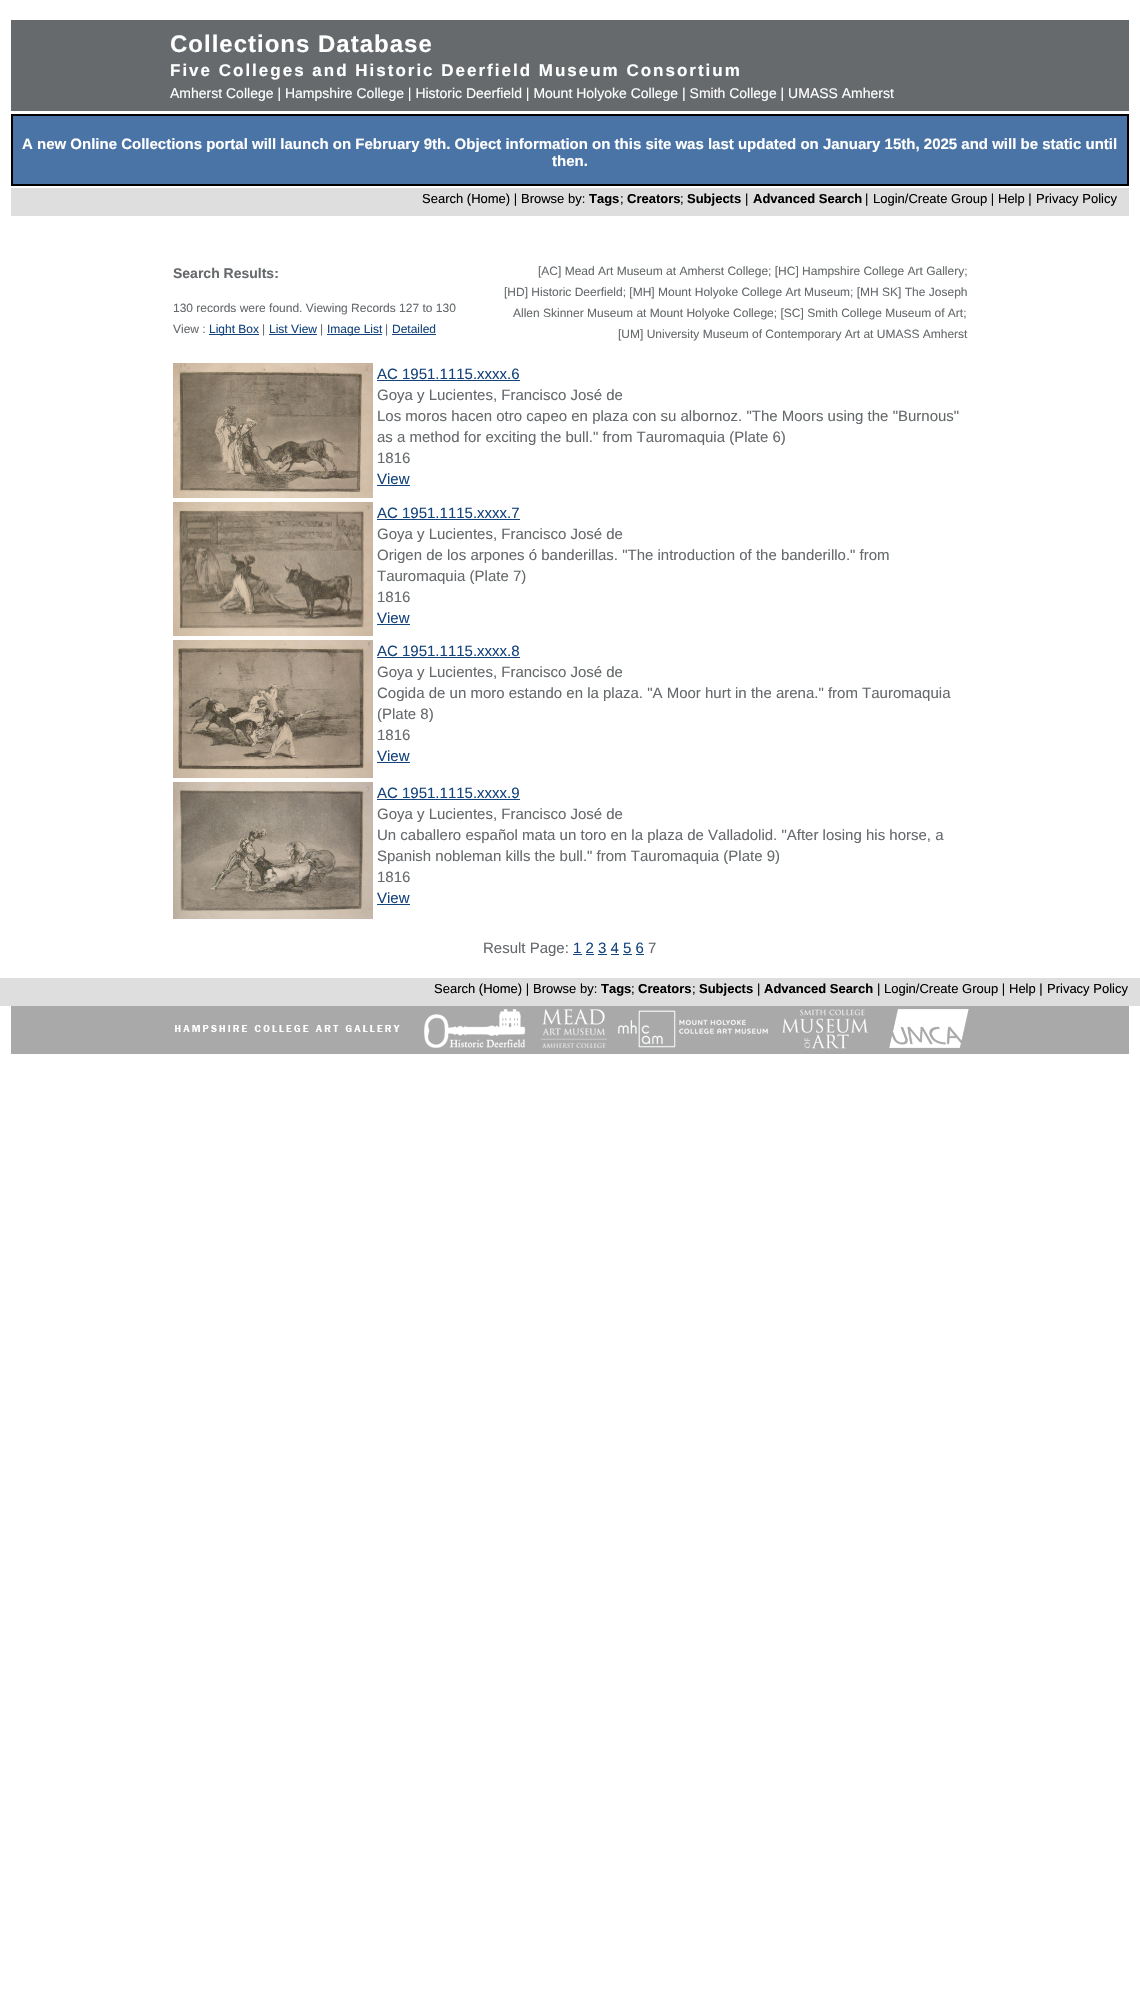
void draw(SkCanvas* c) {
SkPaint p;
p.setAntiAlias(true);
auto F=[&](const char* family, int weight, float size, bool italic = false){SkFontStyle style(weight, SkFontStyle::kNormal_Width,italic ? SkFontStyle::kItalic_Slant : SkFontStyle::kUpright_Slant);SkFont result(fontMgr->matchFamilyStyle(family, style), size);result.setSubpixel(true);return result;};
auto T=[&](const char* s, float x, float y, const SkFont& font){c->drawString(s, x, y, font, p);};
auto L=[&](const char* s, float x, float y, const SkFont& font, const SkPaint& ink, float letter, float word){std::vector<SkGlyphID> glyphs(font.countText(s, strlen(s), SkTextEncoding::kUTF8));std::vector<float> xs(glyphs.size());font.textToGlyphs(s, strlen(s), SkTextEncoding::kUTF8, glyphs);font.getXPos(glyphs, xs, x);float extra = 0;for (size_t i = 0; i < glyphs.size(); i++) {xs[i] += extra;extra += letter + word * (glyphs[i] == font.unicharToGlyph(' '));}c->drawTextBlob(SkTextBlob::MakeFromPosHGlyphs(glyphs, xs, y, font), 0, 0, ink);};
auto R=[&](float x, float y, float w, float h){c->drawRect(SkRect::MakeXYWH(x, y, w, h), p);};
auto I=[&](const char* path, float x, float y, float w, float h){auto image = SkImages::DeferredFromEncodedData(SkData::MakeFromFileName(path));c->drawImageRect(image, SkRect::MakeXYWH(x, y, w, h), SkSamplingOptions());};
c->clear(0xffffffff);
p.setColor(0xff666a6c);
R(11,20,1118,91);
auto f1 = F("Liberation Sans",700,24);
p.setColor(0xffffffff);
L("Collections Database",170,52,f1,p,1,0);
auto f2 = F("Liberation Sans",700,17);
L("Five Colleges and Historic Deerfield Museum Consortium",170,76,f2,p,2,0);
auto f3 = F("Liberation Sans",400,14);
T("Amherst College | Hampshire College | Historic Deerfield | Mount Holyoke College | Smith College | UMASS Amherst",170,98,f3);
p.setColor(0xff4974a5);
c->drawRect(SkRect::MakeXYWH(12,115,1116,70),p);
p.setStroke(true);
p.setStrokeWidth(2);
p.setColor(0xff000000);
c->drawRect(SkRect::MakeXYWH(12,115,1116,70),p);
auto f4 = F("Liberation Sans",700,15);
p.setStroke(false);
p.setColor(0xffffffff);
T("A new Online Collections portal will launch on February 9th. Object information on this site was last updated on January 15th, 2025 and will be static until",22,149,f4);
T("then.",552,166,f4);
p.setColor(0xffdedede);
R(11,188,1118,28);
auto f5 = F("Liberation Sans",400,13);
p.setColor(0xff000000);
T("Search (Home) |",422,203,f5);
T("Browse by:",521,203,f5);
auto f6 = F("Liberation Sans",700,13);
T("Tags",589,203,f6);
T(";",620,203,f5);
T("Creators",627,203,f6);
T(";",680,203,f5);
T("Subjects",687,203,f6);
T("|",745,203,f5);
T("Advanced Search",753,203,f6);
T("|",865,203,f5);
T("Login/Create Group |",873,203,f5);
T("Help |",998,203,f5);
T("Privacy Policy",1036,203,f5);
auto f7 = F("Liberation Sans",700,14);
p.setColor(0xff666a6c);
T("Search Results:",173,278,f7);
auto f8 = F("Liberation Sans",400,12);
T("130 records were found. Viewing Records 127 to 130",173,312,f8);
T("View :",173,333,f8);
p.setColor(0xff15447c);
R(209,334,50,1);
T("Light Box",209,333,f8);
p.setColor(0xff666a6c);
T("|",262,333,f8);
p.setColor(0xff15447c);
T("List View",269,333,f8);
R(269,334,48,1);
p.setColor(0xff666a6c);
T("|",320,333,f8);
p.setColor(0xff15447c);
R(327,334,55,1);
T("Image List",327,333,f8);
p.setColor(0xff666a6c);
T("|",385,333,f8);
p.setColor(0xff15447c);
T("Detailed",392,333,f8);
R(392,334,44,1);
p.setColor(0xff666a6c);
T("[AC] Mead Art Museum at Amherst College; [HC] Hampshire College Art Gallery;",538,275,f8);
T("[HD] Historic Deerfield; [MH] Mount Holyoke College Art Museum; [MH SK] The Joseph",504,296,f8);
T("Allen Skinner Museum at Mount Holyoke College; [SC] Smith College Museum of Art;",513,317,f8);
T("[UM] University Museum of Contemporary Art at UMASS Amherst",618,338,f8);
I("1.png",173,363,200,135);
auto f9 = F("Liberation Sans",400,15);
p.setColor(0xff15447c);
T("AC 1951.1115.xxxx.6",377,379,f9);
R(377,380,143,1);
p.setColor(0xff666a6c);
T("Goya y Lucientes, Francisco José de",377,400,f9);
T("Los moros hacen otro capeo en plaza con su albornoz. \"The Moors using the \"Burnous\"",377,421,f9);
T("as a method for exciting the bull.\" from Tauromaquia (Plate 6)",377,442,f9);
T("1816",377,463,f9);
p.setColor(0xff15447c);
T("View",377,484,f9);
R(377,485,33,1);
I("2.png",173,502,200,134);
T("AC 1951.1115.xxxx.7",377,518,f9);
R(377,519,143,1);
p.setColor(0xff666a6c);
T("Goya y Lucientes, Francisco José de",377,539,f9);
T("Origen de los arpones ó banderillas. \"The introduction of the banderillo.\" from",377,560,f9);
T("Tauromaquia (Plate 7)",377,581,f9);
T("1816",377,602,f9);
p.setColor(0xff15447c);
T("View",377,623,f9);
R(377,624,33,1);
I("3.png",173,640,200,138);
T("AC 1951.1115.xxxx.8",377,656,f9);
R(377,657,143,1);
p.setColor(0xff666a6c);
T("Goya y Lucientes, Francisco José de",377,677,f9);
T("Cogida de un moro estando en la plaza. \"A Moor hurt in the arena.\" from Tauromaquia",377,698,f9);
T("(Plate 8)",377,719,f9);
T("1816",377,740,f9);
p.setColor(0xff15447c);
T("View",377,761,f9);
R(377,762,33,1);
I("4.png",173,782,200,137);
T("AC 1951.1115.xxxx.9",377,798,f9);
R(377,799,143,1);
p.setColor(0xff666a6c);
T("Goya y Lucientes, Francisco José de",377,819,f9);
T("Un caballero español mata un toro en la plaza de Valladolid. \"After losing his horse, a",377,840,f9);
T("Spanish nobleman kills the bull.\" from Tauromaquia (Plate 9)",377,861,f9);
T("1816",377,882,f9);
p.setColor(0xff15447c);
T("View",377,903,f9);
R(377,904,33,1);
p.setColor(0xff666a6c);
T("Result Page:",483,953,f9);
p.setColor(0xff15447c);
T("1 2 3 4 5 6",573,953,f9);
R(573,954,9,1);
p.setColor(0xff666a6c);
T("7",648,953,f9);
p.setColor(0xff15447c);
R(586,954,8,1);
R(598,954,9,1);
R(611,954,8,1);
R(623,954,9,1);
R(636,954,8,1);
p.setColor(0xffdedede);
R(0,978,1140,28);
p.setColor(0xff000000);
T("Search (Home) |",434,993,f5);
T("Browse by:",533,993,f5);
T("Tags",601,993,f6);
T(";",631,993,f5);
T("Creators",638,993,f6);
T(";",692,993,f5);
T("Subjects",699,993,f6);
T("|",757,993,f5);
T("Advanced Search",764,993,f6);
T("|",877,993,f5);
T("Login/Create Group |",884,993,f5);
T("Help |",1009,993,f5);
T("Privacy Policy",1047,993,f5);
p.setColor(0xffa9a9a9);
R(11,1006,1118,48);
I("5.png",175,1025,225,7);
I("6.png",424,1009,102,39);
I("7.png",541,1009,66,39);
I("8.png",617,1010,151,38);
I("9.png",782,1009,87,40);
I("10.png",889,1009,80,39);
}
